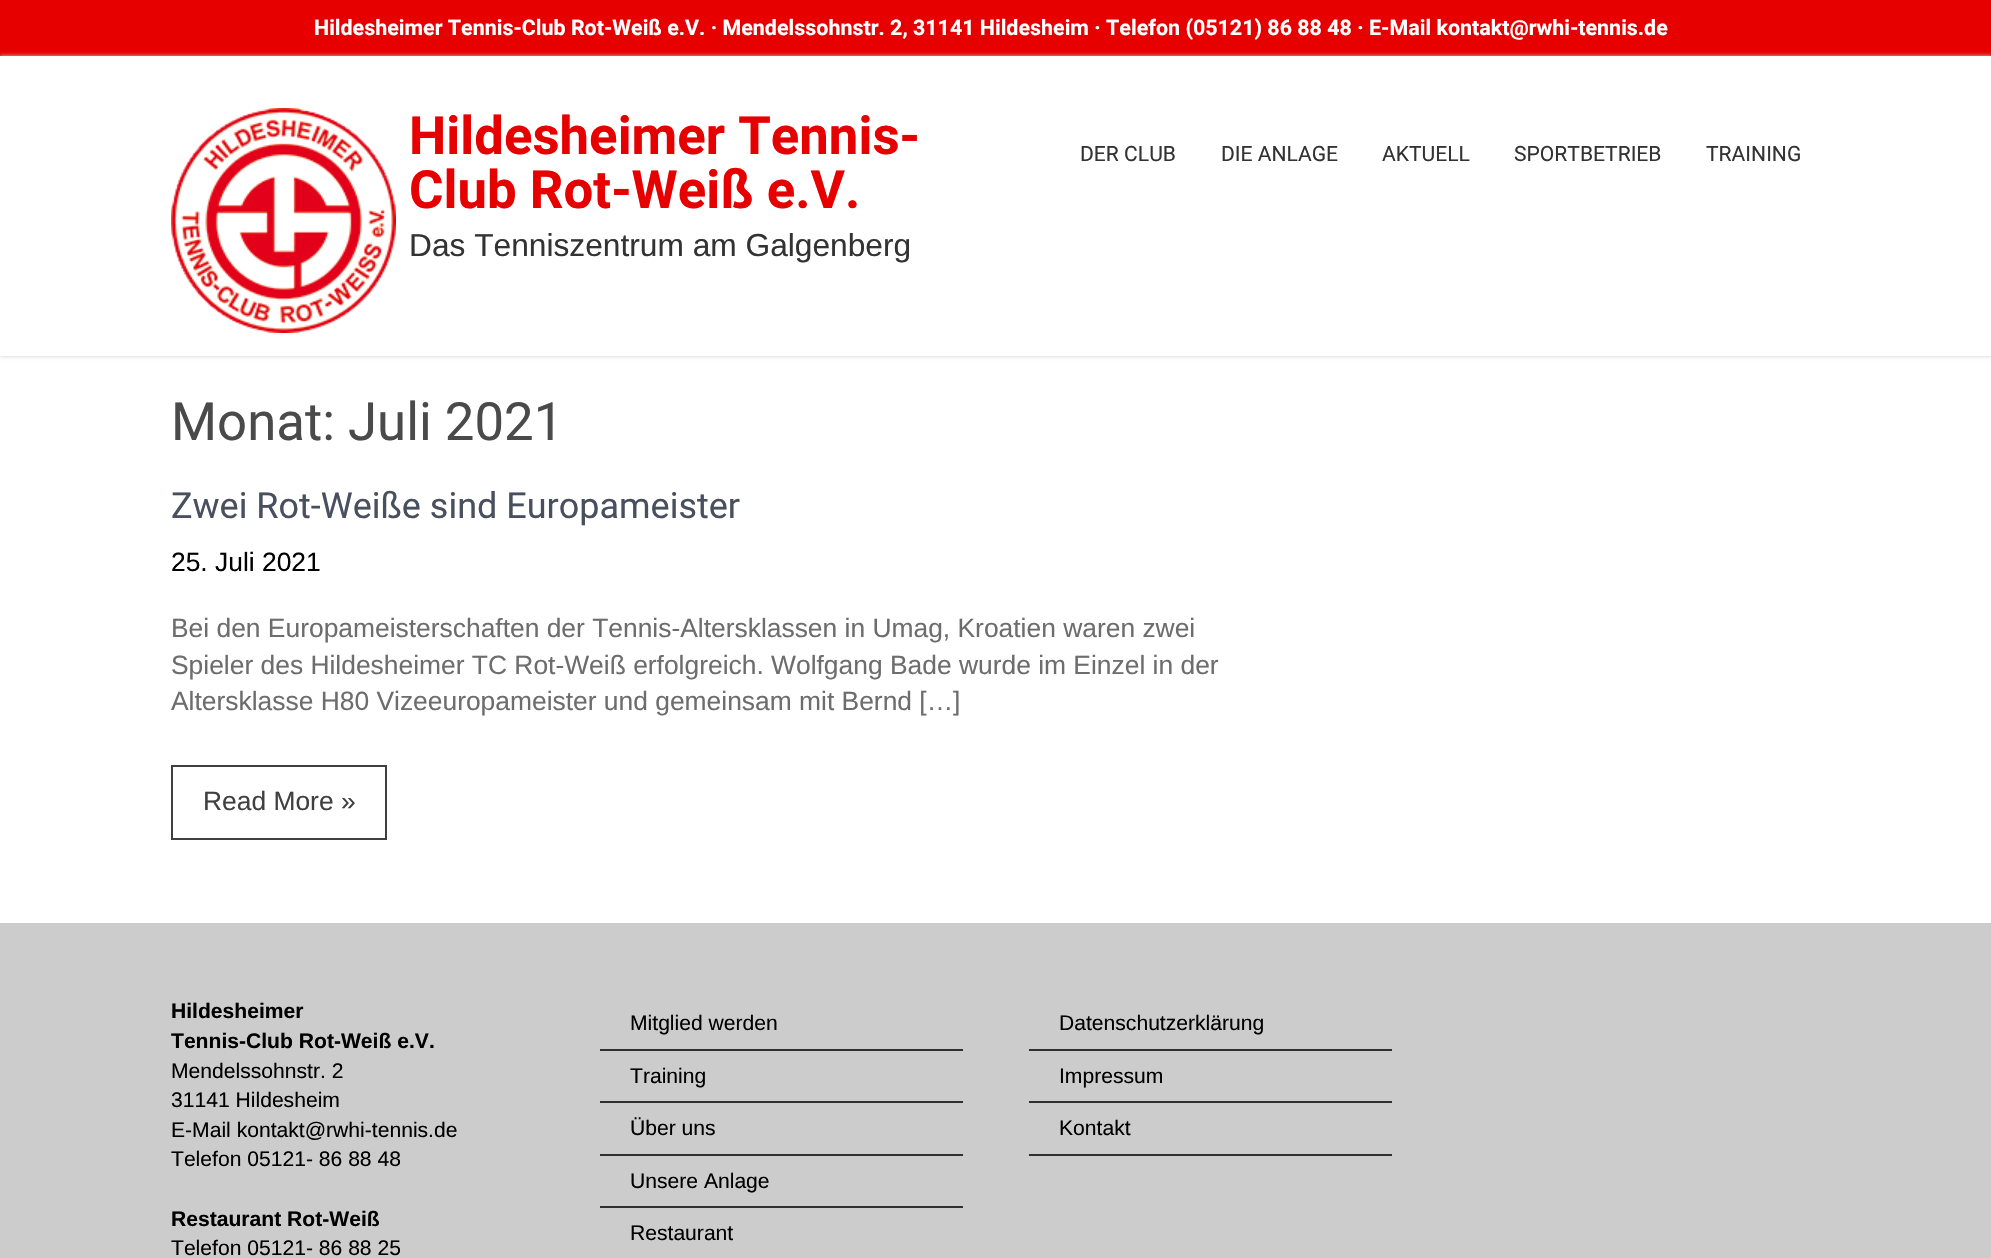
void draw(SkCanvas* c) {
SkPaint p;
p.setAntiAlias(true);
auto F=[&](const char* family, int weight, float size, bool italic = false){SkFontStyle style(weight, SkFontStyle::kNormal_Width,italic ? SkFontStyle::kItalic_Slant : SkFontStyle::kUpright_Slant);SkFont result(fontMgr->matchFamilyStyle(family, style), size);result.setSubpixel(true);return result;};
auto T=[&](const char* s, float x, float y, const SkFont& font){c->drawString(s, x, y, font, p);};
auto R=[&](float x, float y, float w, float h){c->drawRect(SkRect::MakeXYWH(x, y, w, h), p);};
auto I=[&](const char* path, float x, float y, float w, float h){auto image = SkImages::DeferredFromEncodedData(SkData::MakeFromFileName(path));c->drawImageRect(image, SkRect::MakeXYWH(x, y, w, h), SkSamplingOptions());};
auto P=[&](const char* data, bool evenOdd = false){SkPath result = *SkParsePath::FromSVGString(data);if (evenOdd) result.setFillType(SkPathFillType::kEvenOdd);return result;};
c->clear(0xffffffff);
p.setColor(0xffe60000);
R(0,0,1991,56);
auto f1 = F("Roboto",700,21.45);
p.setColor(0xffffffff);
T("Hildesheimer Tennis-Club Rot-Weiß e.V. · Mendelssohnstr. 2, 31141 Hildesheim · Telefon (05121) 86 88 48 · E-Mail kontakt@rwhi-tennis.de",314,35,f1);
c->save();
c->clipPath(P("M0 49h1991v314h-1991zm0 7h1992v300h-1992z",true),true);
p.setColor(0xffcccccc);
p.setMaskFilter(SkMaskFilter::MakeBlur(kNormal_SkBlurStyle, 2));
c->drawRect(SkRect::MakeXYWH(0,56,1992,300),p);
p.setMaskFilter(nullptr);
c->restore();
I("1.png",171,108,225,225);
auto f2 = F("Roboto",700,52.75);
p.setColor(0xffe60000);
T("Hildesheimer Tennis-",409,154,f2);
T("Club Rot-Weiß e.V.",409,208,f2);
auto f3 = F("Liberation Sans",400,31.7);
p.setColor(0xff333333);
T("Das Tenniszentrum am Galgenberg",409,256,f3);
auto f4 = F("Roboto",400,21.1);
T("DER CLUB",1080,161,f4);
T("DIE ANLAGE",1221,161,f4);
T("AKTUELL",1382,161,f4);
T("SPORTBETRIEB",1514,161,f4);
T("TRAINING",1706,161,f4);
auto f5 = F("Roboto",400,52.75);
p.setColor(0xff4b4a4a);
T("Monat: Juli 2021",171,440,f5);
auto f6 = F("Roboto",400,36);
p.setColor(0xff484f5e);
T("Zwei Rot-Weiße sind Europameister",171,518,f6);
auto f7 = F("Liberation Sans",400,26.4);
p.setColor(0xff000000);
T("25. Juli 2021",171,571,f7);
p.setColor(0xff6e6d6d);
T("Bei den Europameisterschaften der Tennis-Altersklassen in Umag, Kroatien waren zwei",171,637,f7);
T("Spieler des Hildesheimer TC Rot-Weiß erfolgreich. Wolfgang Bade wurde im Einzel in der",171,674,f7);
T("Altersklasse H80 Vizeeuropameister und gemeinsam mit Bernd […]",171,710,f7);
p.setStroke(true);
p.setStrokeWidth(2);
p.setColor(0xff404040);
c->drawRect(SkRect::MakeXYWH(172,766,214,73),p);
p.setStroke(false);
T("Read More »",203,810,f7);
p.setColor(0xffcccccc);
R(0,923,1991,335);
auto f8 = F("Liberation Sans",700,21.1);
p.setColor(0xff000000);
T("Hildesheimer",171,1018,f8);
T("Tennis-Club Rot-Weiß e.V.",171,1048,f8);
auto f9 = F("Liberation Sans",400,21.1);
T("Mendelssohnstr. 2",171,1078,f9);
T("31141 Hildesheim",171,1107,f9);
T("E-Mail kontakt@rwhi-tennis.de",171,1137,f9);
T("Telefon 05121- 86 88 48",171,1166,f9);
T("Restaurant Rot-Weiß",171,1226,f8);
T("Telefon 05121- 86 88 25",171,1255,f9);
p.setColor(0xff303030);
R(600,1049,363,2);
p.setColor(0xff000000);
T("Mitglied werden",630,1030,f9);
p.setColor(0xff303030);
R(600,1101,363,2);
p.setColor(0xff000000);
T("Training",630,1083,f9);
p.setColor(0xff303030);
R(600,1154,363,2);
p.setColor(0xff000000);
T("Über uns",630,1135,f9);
p.setColor(0xff303030);
R(600,1206,363,2);
p.setColor(0xff000000);
T("Unsere Anlage",630,1188,f9);
T("Restaurant",630,1240,f9);
p.setColor(0xff303030);
R(1029,1049,363,2);
p.setColor(0xff000000);
T("Datenschutzerklärung",1059,1030,f9);
p.setColor(0xff303030);
R(1029,1101,363,2);
p.setColor(0xff000000);
T("Impressum",1059,1083,f9);
p.setColor(0xff303030);
R(1029,1154,363,2);
p.setColor(0xff000000);
T("Kontakt",1059,1135,f9);
}
